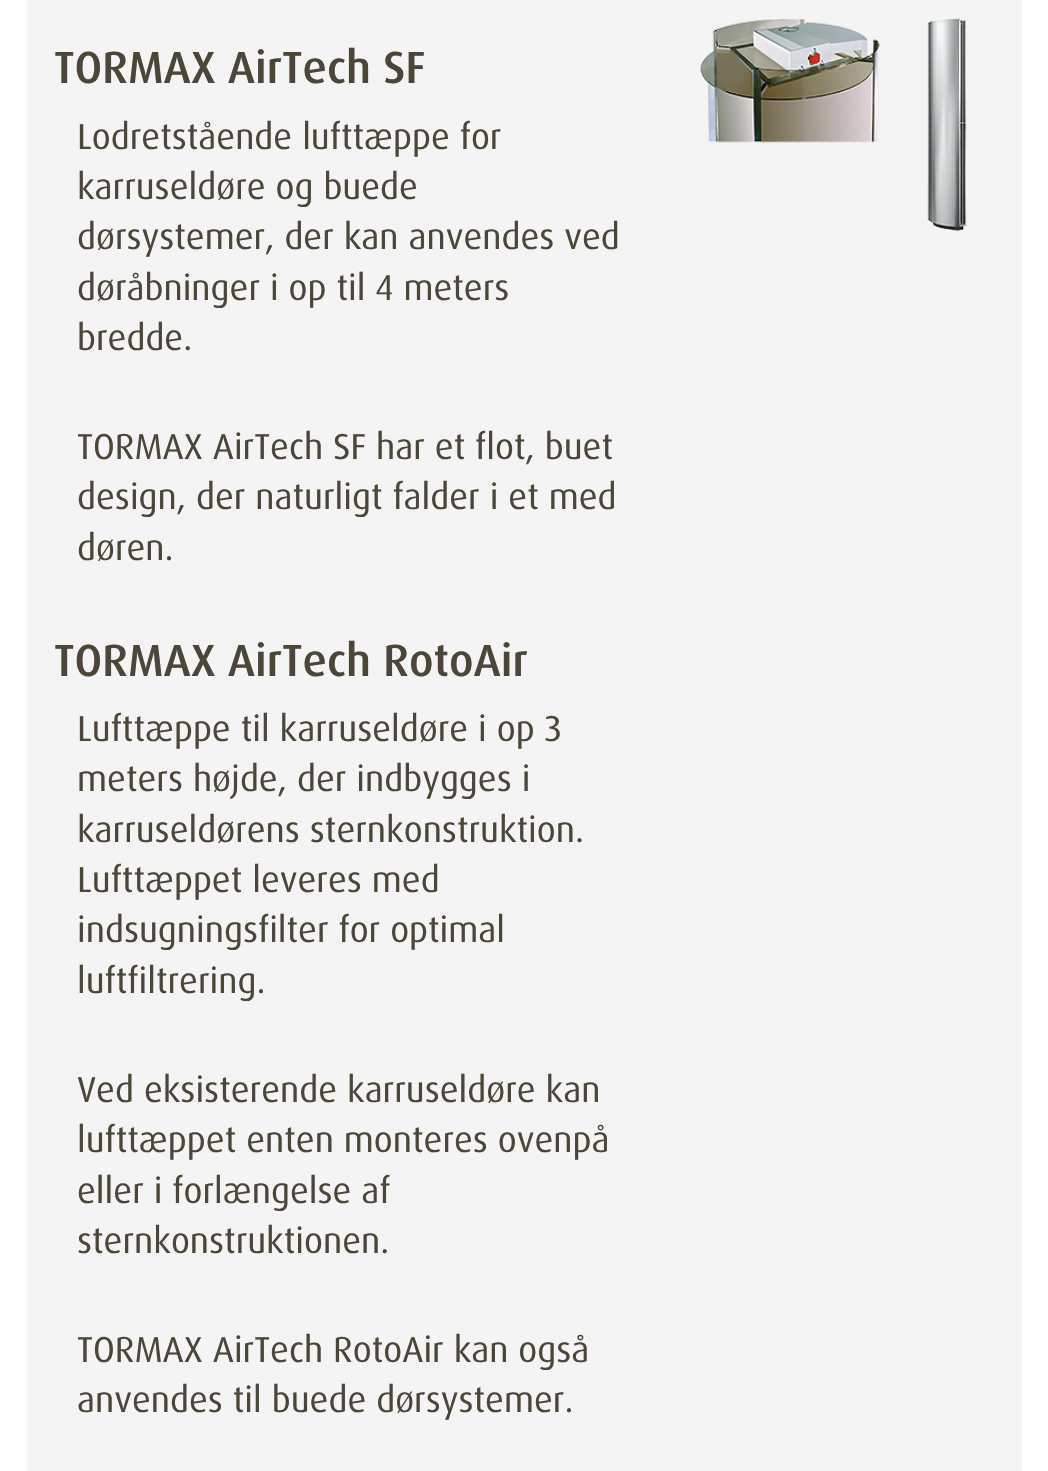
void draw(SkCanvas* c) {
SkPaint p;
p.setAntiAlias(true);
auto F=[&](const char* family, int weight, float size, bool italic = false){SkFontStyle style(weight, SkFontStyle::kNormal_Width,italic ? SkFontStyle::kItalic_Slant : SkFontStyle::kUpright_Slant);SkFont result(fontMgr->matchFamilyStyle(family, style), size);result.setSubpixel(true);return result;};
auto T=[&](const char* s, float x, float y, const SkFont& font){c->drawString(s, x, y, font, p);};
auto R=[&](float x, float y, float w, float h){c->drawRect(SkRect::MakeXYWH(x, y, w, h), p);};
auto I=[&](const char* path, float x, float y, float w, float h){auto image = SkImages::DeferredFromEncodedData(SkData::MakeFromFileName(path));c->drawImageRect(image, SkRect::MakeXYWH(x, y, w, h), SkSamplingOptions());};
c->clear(0xffffffff);
p.setColor(0xfff4f4f4);
R(27,0,995,1471);
auto f1 = F("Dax",500,45);
p.setColor(0xff4c4638);
T("TORMAX AirTech SF",54,83,f1);
auto f2 = F("Dax",400,36);
T("Lodretstående lufttæppe for",77,149,f2);
T("karruseldøre og buede",77,199,f2);
T("dørsystemer, der kan anvendes ved",77,249,f2);
T("døråbninger i op til 4 meters",77,300,f2);
T("bredde.",77,350,f2);
T("TORMAX AirTech SF har et flot, buet",77,459,f2);
T("design, der naturligt falder i et med",77,509,f2);
T("døren.",77,560,f2);
T("TORMAX AirTech RotoAir",54,676,f1);
T("Lufttæppe til karruseldøre i op 3",77,741,f2);
T("meters højde, der indbygges i",77,791,f2);
T("karruseldørens sternkonstruktion.",77,842,f2);
T("Lufttæppet leveres med",77,892,f2);
T("indsugningsfilter for optimal",77,942,f2);
T("luftfiltrering.",77,993,f2);
T("Ved eksisterende karruseldøre kan",77,1102,f2);
T("lufttæppet enten monteres ovenpå",77,1152,f2);
T("eller i forlængelse af",77,1203,f2);
T("sternkonstruktionen.",77,1253,f2);
T("TORMAX AirTech RotoAir kan også",77,1362,f2);
T("anvendes til buede dørsystemer.",77,1412,f2);
I("1.png",699,18,268,213);
}
